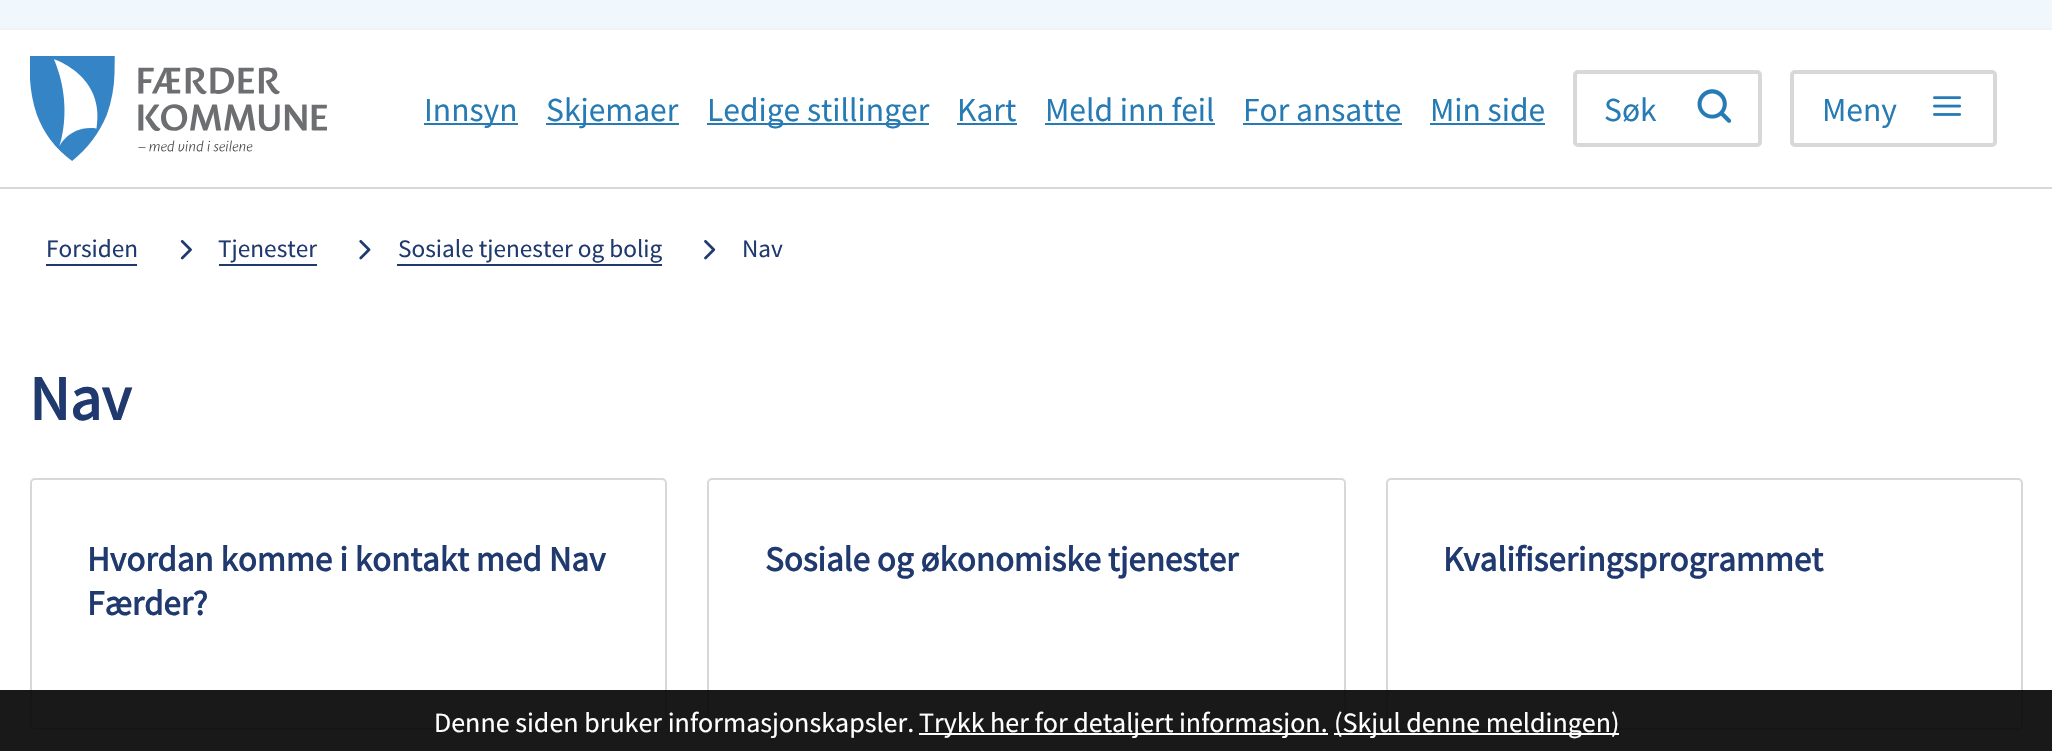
void draw(SkCanvas* c) {
SkPaint p;
p.setAntiAlias(true);
auto F=[&](const char* family, int weight, float size, bool italic = false){SkFontStyle style(weight, SkFontStyle::kNormal_Width,italic ? SkFontStyle::kItalic_Slant : SkFontStyle::kUpright_Slant);SkFont result(fontMgr->matchFamilyStyle(family, style), size);result.setSubpixel(true);return result;};
auto T=[&](const char* s, float x, float y, const SkFont& font){c->drawString(s, x, y, font, p);};
auto R=[&](float x, float y, float w, float h){c->drawRect(SkRect::MakeXYWH(x, y, w, h), p);};
auto I=[&](const char* path, float x, float y, float w, float h){auto image = SkImages::DeferredFromEncodedData(SkData::MakeFromFileName(path));c->drawImageRect(image, SkRect::MakeXYWH(x, y, w, h), SkSamplingOptions());};
c->clear(0xffffffff);
p.setColor(0xffd8d8d8);
R(0,187,2052,2);
p.setColor(0xfff0f8fd);
R(0,0,2052,28);
p.setColor(0xfff2f2f2);
R(0,28,2052,2);
I("1.png",30,56,297,105);
p.setColor(0xff277bb4);
R(424,123,94,2);
auto f1 = F("Source Sans Pro",400,33.5);
T("Innsyn",424,121,f1);
R(546,123,133,2);
T("Skjemaer",546,121,f1);
R(707,123,222,2);
T("Ledige stillinger",707,121,f1);
T("Kart",957,121,f1);
R(957,123,60,2);
T("Meld inn feil",1045,121,f1);
R(1045,123,170,2);
T("For ansatte",1243,121,f1);
R(1243,123,159,2);
T("Min side",1430,121,f1);
R(1430,123,115,2);
p.setStroke(true);
p.setStrokeWidth(4);
p.setColor(0xffd8d8d8);
c->drawRoundRect(SkRect::MakeXYWH(1575,72,185,73),3,3,p);
p.setStroke(false);
p.setColor(0xff277bb4);
T("Søk",1604,121,f1);
I("2.png",1697,89,35,34);
p.setStroke(true);
p.setColor(0xffd8d8d8);
c->drawRoundRect(SkRect::MakeXYWH(1792,72,203,73),3,3,p);
p.setStroke(false);
p.setColor(0xff277bb4);
T("Meny",1822,121,f1);
I("3.png",1933,96,28,20);
auto f2 = F("Source Sans Pro",400,25.25);
p.setColor(0xff203a70);
T("Forsiden",46,257,f2);
R(46,264,91,2);
I("4.png",180,240,12,20);
T("Tjenester",218,257,f2);
R(219,264,98,2);
I("5.png",359,240,12,20);
T("Sosiale tjenester og bolig",398,257,f2);
R(397,264,265,2);
I("6.png",704,240,12,20);
T("Nav",742,257,f2);
auto f3 = F("Source Sans Pro",700,63);
T("Nav",29,420,f3);
p.setStroke(true);
p.setStrokeWidth(2);
p.setColor(0xffd8d8d8);
c->drawRoundRect(SkRect::MakeXYWH(31,479,635,250),4,4,p);
auto f4 = F("Source Sans Pro",700,35);
p.setStroke(false);
p.setColor(0xff203a70);
T("Hvordan komme i kontakt med Nav",87,571,f4);
T("Færder?",87,615,f4);
p.setStroke(true);
p.setColor(0xffd8d8d8);
c->drawRoundRect(SkRect::MakeXYWH(708,479,637,250),4,4,p);
p.setStroke(false);
p.setColor(0xff203a70);
T("Sosiale og økonomiske tjenester",765,571,f4);
p.setStroke(true);
p.setColor(0xffd8d8d8);
c->drawRoundRect(SkRect::MakeXYWH(1387,479,635,250),4,4,p);
p.setStroke(false);
p.setColor(0xff203a70);
T("Kvalifiseringsprogrammet",1443,571,f4);
p.setColor(0xe6000000);
R(0,690,2052,61);
auto f5 = F("Source Sans Pro",400,28);
p.setColor(0xffffffff);
T("Denne siden bruker informasjonskapsler.",434,732,f5);
R(919,733,409,2);
T("Trykk her for detaljert informasjon.",919,732,f5);
R(1334,733,285,2);
T("(Skjul denne meldingen)",1334,732,f5);
}
